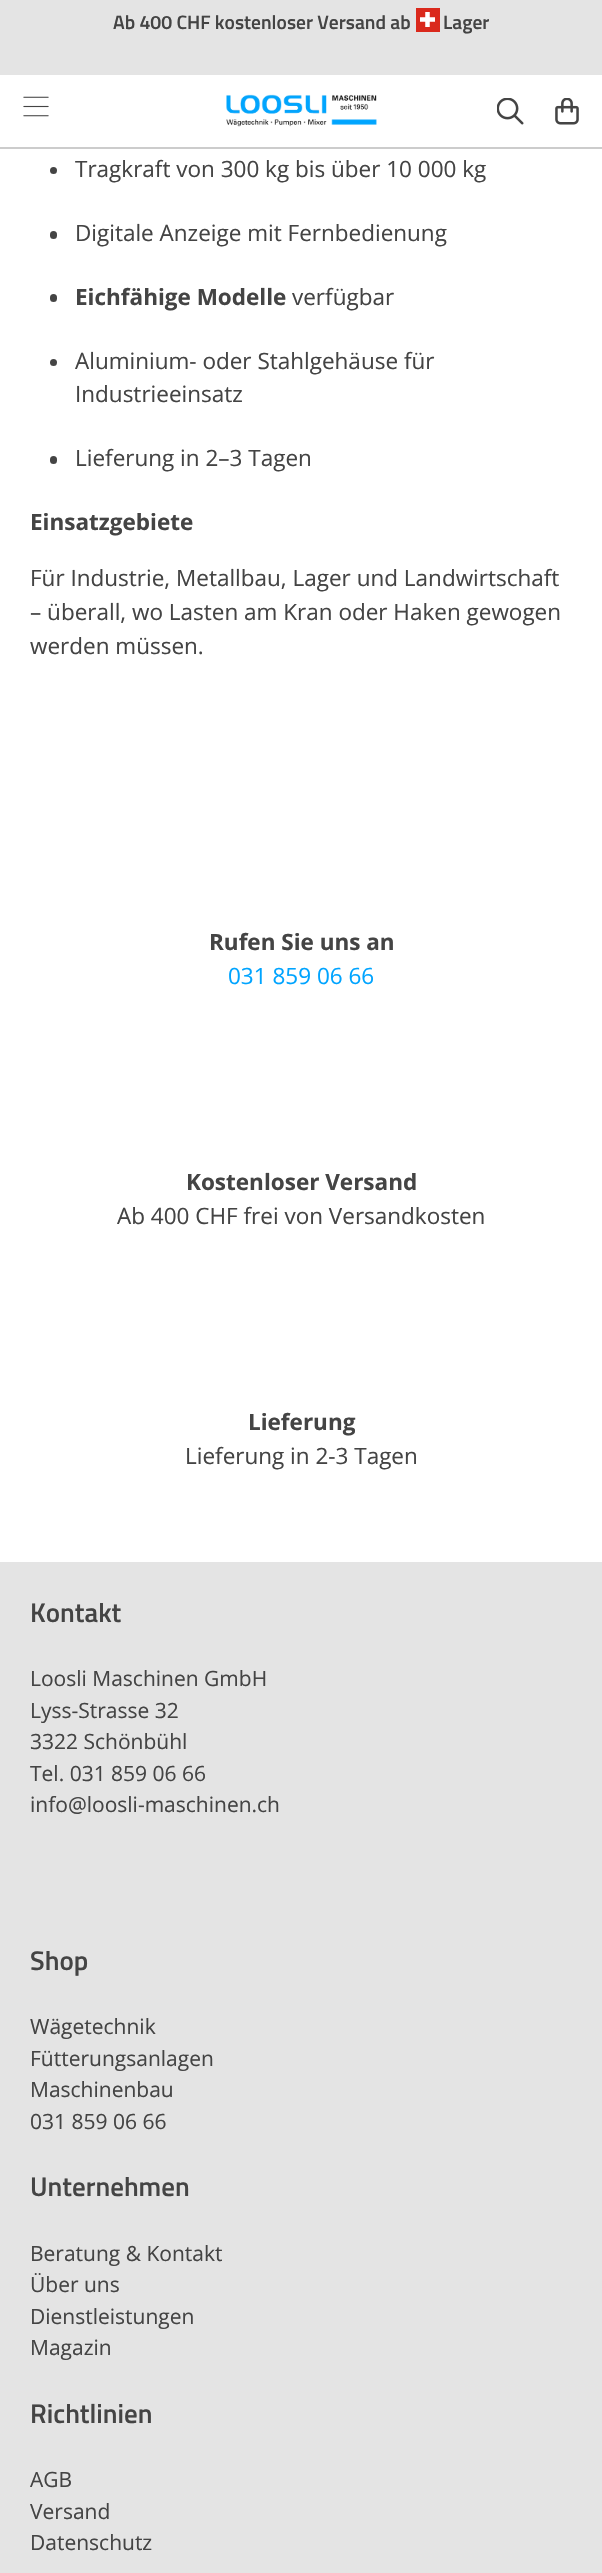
void draw(SkCanvas* c) {
SkPaint p;
p.setAntiAlias(true);
auto F=[&](const char* family, int weight, float size, bool italic = false){SkFontStyle style(weight, SkFontStyle::kNormal_Width,italic ? SkFontStyle::kItalic_Slant : SkFontStyle::kUpright_Slant);SkFont result(fontMgr->matchFamilyStyle(family, style), size);result.setSubpixel(true);return result;};
auto T=[&](const char* s, float x, float y, const SkFont& font){c->drawString(s, x, y, font, p);};
auto R=[&](float x, float y, float w, float h){c->drawRect(SkRect::MakeXYWH(x, y, w, h), p);};
auto Q=[&](float x, float y, float w, float h, float radius){c->drawRoundRect(SkRect::MakeXYWH(x, y, w, h), radius, radius, p);};
auto I=[&](const char* path, float x, float y, float w, float h){auto image = SkImages::DeferredFromEncodedData(SkData::MakeFromFileName(path));c->drawImageRect(image, SkRect::MakeXYWH(x, y, w, h), SkSamplingOptions());};
c->clear(0xffffffff);
p.setColor(0xffe4e4e4);
R(0,0,602,75);
auto f1 = F("Titillium Web",600,19.5);
p.setColor(0xff444444);
T("Ab 400 CHF kostenloser Versand ab",113,29,f1);
I("1.png",416,8,24,24);
T("Lager",443,29,f1);
p.setColor(0xffcccccc);
R(0,147,602,2);
I("2.png",23,96,26,21);
I("3.png",226,94,151,33);
I("4.png",497,98,27,27);
I("5.png",555,98,24,27);
p.setColor(0xff444444);
c->drawCircle(53.5,170.5,3.5,p);
auto f2 = F("Open Sans",400,22.5);
T("Tragkraft von 300 kg bis über 10 000 kg",75,177,f2);
Q(50,231,7,8,3.5);
T("Digitale Anzeige mit Fernbedienung",75,241,f2);
Q(50,294,7,8,3.5);
auto f3 = F("Open Sans",700,22.5);
T("Eichfähige Modelle",75,305,f3);
T("verfügbar",292,305,f2);
c->drawCircle(53.5,362.5,3.5,p);
T("Aluminium- oder Stahlgehäuse für",75,369,f2);
T("Industrieeinsatz",75,402,f2);
Q(50,456,7,8,3.5);
T("Lieferung in 2–3 Tagen",75,466,f2);
T("Einsatzgebiete",30,530,f3);
T("Für Industrie, Metallbau, Lager und Landwirtschaft",30,586,f2);
T("– überall, wo Lasten am Kran oder Haken gewogen",30,620,f2);
T("werden müssen.",30,654,f2);
T("Rufen Sie uns an",209,950,f3);
p.setColor(0xff00a4ff);
T("031 859 06 66",228,984,f2);
p.setColor(0xff444444);
T("Kostenloser Versand",186,1190,f3);
T("Ab 400 CHF frei von Versandkosten",117,1224,f2);
T("Lieferung",248,1430,f3);
T("Lieferung in 2-3 Tagen",185,1464,f2);
p.setColor(0xffe4e4e4);
R(0,1562,602,1011);
auto f4 = F("Titillium Web",600,27);
p.setColor(0xff444444);
T("Kontakt",30,1622,f4);
auto f5 = F("Open Sans",400,21);
T("Loosli Maschinen GmbH",30,1686,f5);
T("Lyss-Strasse 32",30,1718,f5);
T("3322 Schönbühl",30,1749,f5);
T("Tel. 031 859 06 66",30,1781,f5);
T("info@loosli-maschinen.ch",30,1812,f5);
T("Shop",30,1970,f4);
T("Wägetechnik",30,2034,f5);
T("Fütterungsanlagen",30,2066,f5);
T("Maschinenbau",30,2097,f5);
T("031 859 06 66",30,2129,f5);
T("Unternehmen",30,2196,f4);
T("Beratung & Kontakt",30,2261,f5);
T("Über uns",30,2292,f5);
T("Dienstleistungen",30,2324,f5);
T("Magazin",30,2355,f5);
T("Richtlinien",30,2423,f4);
T("AGB",30,2487,f5);
T("Versand",30,2519,f5);
T("Datenschutz",30,2550,f5);
}
